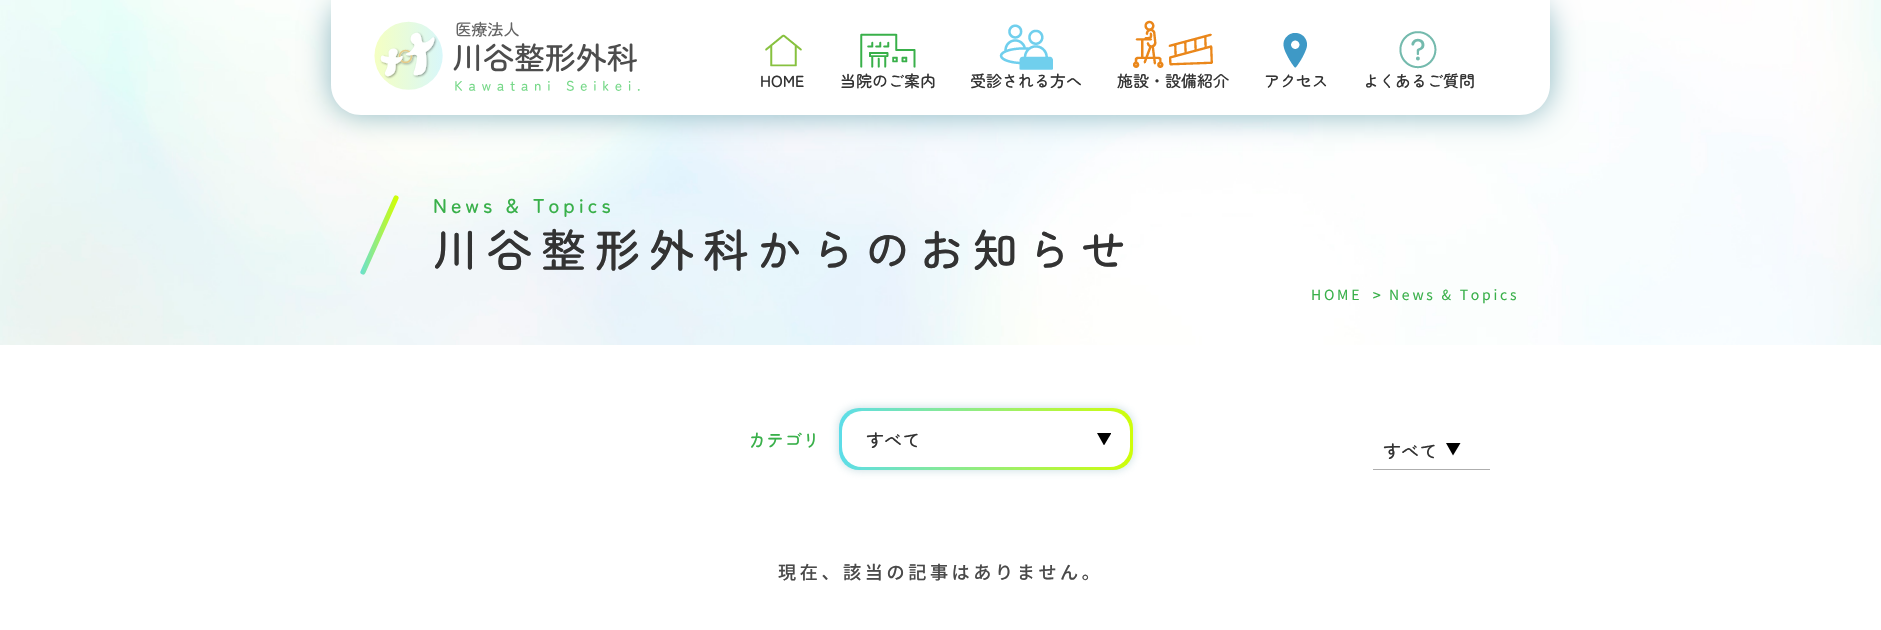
void draw(SkCanvas* c) {
SkPaint p;
p.setAntiAlias(true);
auto F=[&](const char* family, int weight, float size, bool italic = false){SkFontStyle style(weight, SkFontStyle::kNormal_Width,italic ? SkFontStyle::kItalic_Slant : SkFontStyle::kUpright_Slant);SkFont result(fontMgr->matchFamilyStyle(family, style), size);result.setSubpixel(true);return result;};
auto T=[&](const char* s, float x, float y, const SkFont& font){c->drawString(s, x, y, font, p);};
auto L=[&](const char* s, float x, float y, const SkFont& font, const SkPaint& ink, float letter, float word){std::vector<SkGlyphID> glyphs(font.countText(s, strlen(s), SkTextEncoding::kUTF8));std::vector<float> xs(glyphs.size());font.textToGlyphs(s, strlen(s), SkTextEncoding::kUTF8, glyphs);font.getXPos(glyphs, xs, x);float extra = 0;for (size_t i = 0; i < glyphs.size(); i++) {xs[i] += extra;extra += letter + word * (glyphs[i] == font.unicharToGlyph(' '));}c->drawTextBlob(SkTextBlob::MakeFromPosHGlyphs(glyphs, xs, y, font), 0, 0, ink);};
auto R=[&](float x, float y, float w, float h){c->drawRect(SkRect::MakeXYWH(x, y, w, h), p);};
auto Q=[&](float x, float y, float w, float h, float radius){c->drawRoundRect(SkRect::MakeXYWH(x, y, w, h), radius, radius, p);};
auto I=[&](const char* path, float x, float y, float w, float h){auto image = SkImages::DeferredFromEncodedData(SkData::MakeFromFileName(path));c->drawImageRect(image, SkRect::MakeXYWH(x, y, w, h), SkSamplingOptions());};
auto P=[&](const char* data, bool evenOdd = false){SkPath result = *SkParsePath::FromSVGString(data);if (evenOdd) result.setFillType(SkPathFillType::kEvenOdd);return result;};
c->clear(0xffffffff);
I("8.png",0,0,1881,345);
p.setColor(0xff8bb7c1);
p.setMaskFilter(SkMaskFilter::MakeBlur(kNormal_SkBlurStyle, 15));
c->drawRoundRect(SkRect::MakeXYWH(331,0,1219,115),30,30,p);
p.setMaskFilter(nullptr);
p.setColor(0xffffffff);
c->drawPath(P("M331 0h1219v85c0 16.5-13.5 30-30 30h-1159c-16.5 0-30-13.5-30-30z"),p);
I("1.png",374,21,266,70);
I("2.png",765,34,37,33);
auto f1 = F("Zen Maru Gothic",500,16);
p.setColor(0xff333333);
T("HOME",760,87,f1);
I("3.png",860,33,56,35);
T("当院のご案内",840,87,f1);
I("4.png",999,24,54,46);
T("受診される方へ",970,87,f1);
I("5.png",1133,20,80,48);
T("施設・設備紹介",1117,87,f1);
I("6.png",1283,33,24,35);
T("アクセス",1264,87,f1);
I("7.png",1399,31,38,38);
T("よくあるご質問",1363,87,f1);
p.setStroke(true);
p.setStrokeWidth(5.2);
p.setStrokeCap(SkPaint::kRound_Cap);
p.setStrokeJoin(SkPaint::kRound_Join);
{
const SkColor colors[] = {0xff5cdde9,0xffd3ff00};
const float stops[] = {0,1};
const SkPoint ends[] = {{360,242}, {393,245}};
p.setShader(SkGradientShader::MakeLinear(ends, colors, stops, 2, SkTileMode::kClamp));
p.setAlpha(255);
}
c->drawPath(P("M396 198l-33 74"),p);
auto f2 = F("Zen Maru Gothic",500,20);
p.setStroke(false);
p.setShader(nullptr);
p.setColor(0xff39b04a);
L("News & Topics",433,213,f2,p,4,0);
auto f3 = F("Zen Maru Gothic",500,45);
p.setColor(0xff333333);
L("川谷整形外科からのお知らせ",433,267,f3,p,9,0);
auto f4 = F("Noto Sans JP",400,14);
p.setColor(0xff39b04a);
L("HOME",1311,300,f4,p,2.75,0);
I("9.png",1373,292,8,7);
L("News & Topics",1389,300,f4,p,2.75,0);
auto f5 = F("Zen Maru Gothic",500,18.1);
T("カテゴリ",748,447,f5);
p.setColor(0x808bb7c1);
p.setMaskFilter(SkMaskFilter::MakeBlur(kNormal_SkBlurStyle, 5));
c->drawRoundRect(SkRect::MakeXYWH(839,408,294,62),20,20,p);
p.setMaskFilter(nullptr);
{
const SkColor colors[] = {0xff5cdde9,0xffcffe08};
const float stops[] = {0,1};
const SkPoint ends[] = {{839,439}, {1133,439}};
p.setShader(SkGradientShader::MakeLinear(ends, colors, stops, 2, SkTileMode::kClamp));
p.setAlpha(255);
}
Q(839,408,294,62,20);
p.setShader(nullptr);
p.setColor(0xffffffff);
Q(842,411,288,56,20);
c->save();
c->clipRect(SkRect::MakeXYWH(1097,433,14,12));
p.setColor(0xff000000);
c->drawPath(P("M1097 433h14.5l-7.5 12.5z"),p);
c->restore();
p.setColor(0xff333333);
T("すべて",866,447,f5);
p.setColor(0xff000000);
c->drawPath(P("M1446 443h14.5l-7.5 12.5z"),p);
p.setColor(0xffaeaeae);
R(1373,469,117,1);
p.setColor(0xff333333);
T("すべて",1383,458,f5);
auto f6 = F("Noto Sans JP",500,18.1);
p.setColor(0xff4a4a4a);
L("現在、該当の記事はありません。",778,579,f6,p,3.6,0);
}
